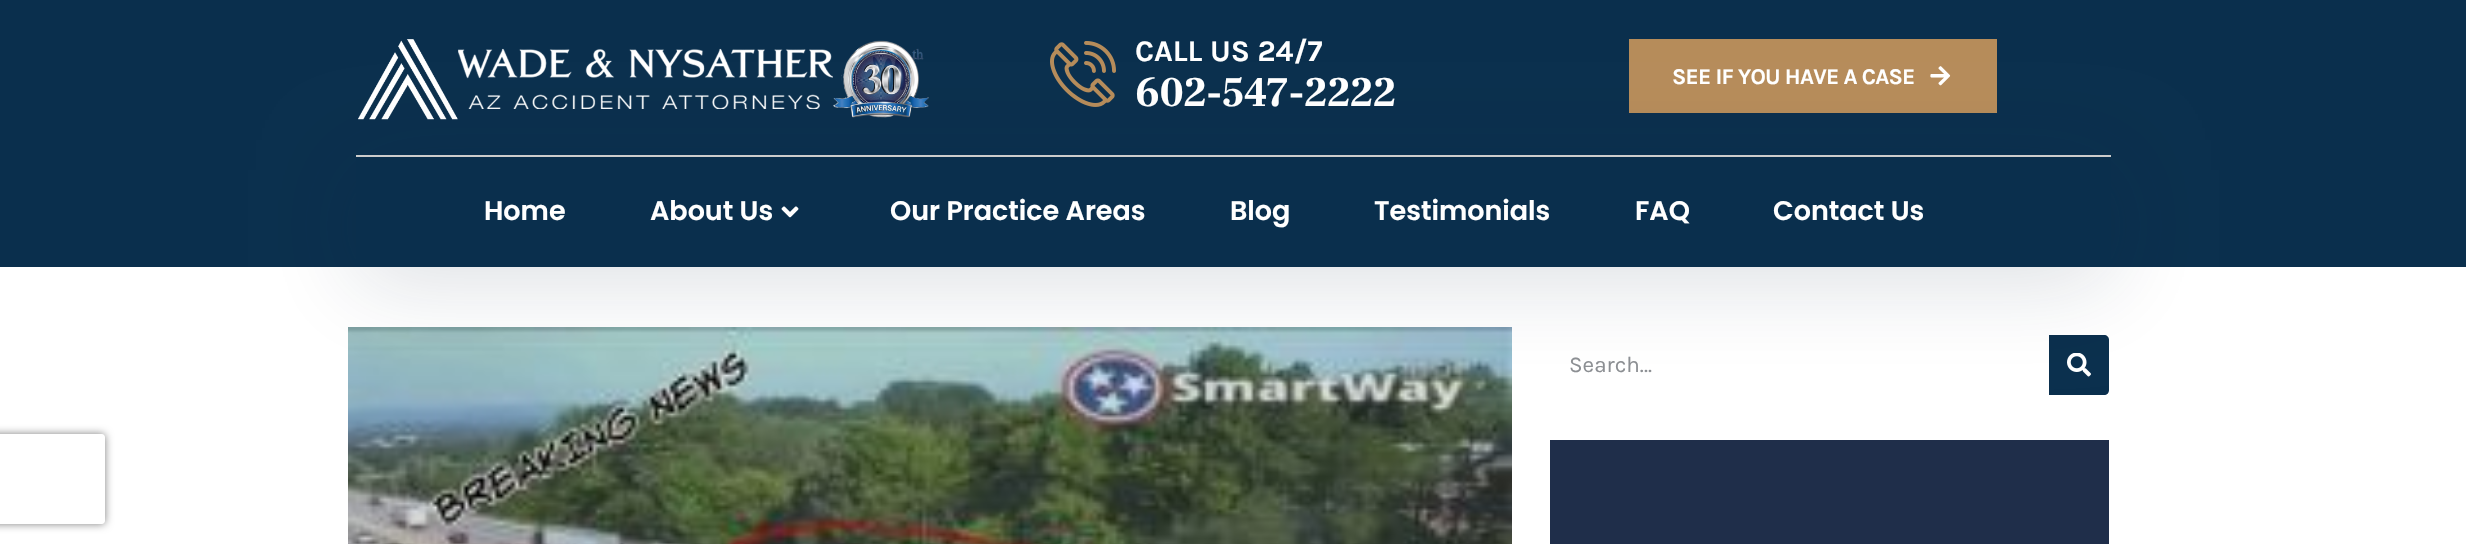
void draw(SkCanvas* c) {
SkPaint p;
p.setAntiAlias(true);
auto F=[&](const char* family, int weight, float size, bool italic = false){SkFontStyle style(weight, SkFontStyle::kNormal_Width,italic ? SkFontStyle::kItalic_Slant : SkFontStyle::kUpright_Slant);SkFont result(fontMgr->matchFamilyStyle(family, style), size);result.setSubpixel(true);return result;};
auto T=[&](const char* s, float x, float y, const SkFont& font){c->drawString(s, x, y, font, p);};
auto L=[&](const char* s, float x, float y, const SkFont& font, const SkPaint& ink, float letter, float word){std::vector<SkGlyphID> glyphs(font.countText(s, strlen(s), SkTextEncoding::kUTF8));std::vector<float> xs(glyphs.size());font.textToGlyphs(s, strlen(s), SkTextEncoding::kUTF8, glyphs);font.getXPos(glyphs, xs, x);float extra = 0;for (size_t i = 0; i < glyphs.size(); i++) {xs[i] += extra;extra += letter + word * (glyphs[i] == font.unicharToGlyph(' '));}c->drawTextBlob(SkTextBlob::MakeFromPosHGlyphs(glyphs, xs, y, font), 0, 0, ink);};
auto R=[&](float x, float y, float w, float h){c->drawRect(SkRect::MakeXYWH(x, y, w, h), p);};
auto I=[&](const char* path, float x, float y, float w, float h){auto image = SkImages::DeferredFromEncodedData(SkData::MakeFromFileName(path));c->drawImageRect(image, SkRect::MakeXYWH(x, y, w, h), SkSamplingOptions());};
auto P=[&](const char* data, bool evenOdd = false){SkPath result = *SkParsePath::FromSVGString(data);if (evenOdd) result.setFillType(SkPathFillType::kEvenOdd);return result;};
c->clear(0xffffffff);
p.setColor(0xff0a2f4d);
R(0,0,2466,267);
I("1.png",358,39,571,81);
I("2.png",1050,41,66,66);
auto f1 = F("Karla",700,30);
p.setColor(0xffffffff);
T("CALL US 24/7",1135,61,f1);
auto f2 = F("Frank Ruhl Libre",700,42);
L("602-547-2222",1135,106,f2,p,-1,0);
p.setColor(0xffb68c5a);
R(1629,39,368,74);
auto f3 = F("Karla",700,22.5);
p.setColor(0xffffffff);
L("SEE IF YOU HAVE A CASE",1672,84,f3,p,-.75,0);
I("3.png",1930,66,21,20);
I("5.png",348,327,1164,217);
p.setColor(0xff0a2f4d);
c->drawPath(P("M2049 335h55c3 0 5 2 5 5v50c0 3-2 5-5 5h-55z"),p);
I("6.png",2067,353,24,24);
c->save();
c->clipPath(P("M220 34h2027v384h-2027zm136 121h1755v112h-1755z",true),true);
p.setColor(0x26162542);
p.setMaskFilter(SkMaskFilter::MakeBlur(kNormal_SkBlurStyle, 45));
c->drawRect(SkRect::MakeXYWH(356,170,1755,112),p);
p.setMaskFilter(nullptr);
c->restore();
p.setColor(0xffcccccc);
R(356,155,1755,2);
auto f4 = F("Poppins",600,27);
p.setColor(0xffffffff);
T("Home",484,220,f4);
T("About Us",650,220,f4);
I("4.png",781,206,18,12);
T("Our Practice Areas",890,220,f4);
T("Blog",1230,220,f4);
T("Testimonials",1374,220,f4);
T("FAQ",1635,220,f4);
T("Contact Us",1773,220,f4);
auto f5 = F("Karla",400,22.5);
p.setColor(0xff8c8f93);
T("Search...",1569,372,f5);
p.setColor(0xff1f2e4a);
R(1550,440,559,104);
c->save();
c->clipPath(P("M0 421h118v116h-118zm-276 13h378c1.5 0 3 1.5 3 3v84c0 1.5-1.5 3-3 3h-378c-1.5 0-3-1.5-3-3v-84c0-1.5 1.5-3 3-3z",true),true);
p.setColor(0xff808080);
p.setMaskFilter(SkMaskFilter::MakeBlur(kNormal_SkBlurStyle, 4));
c->drawRoundRect(SkRect::MakeXYWH(-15,434,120,90),3,3,p);
p.setMaskFilter(nullptr);
c->restore();
}
